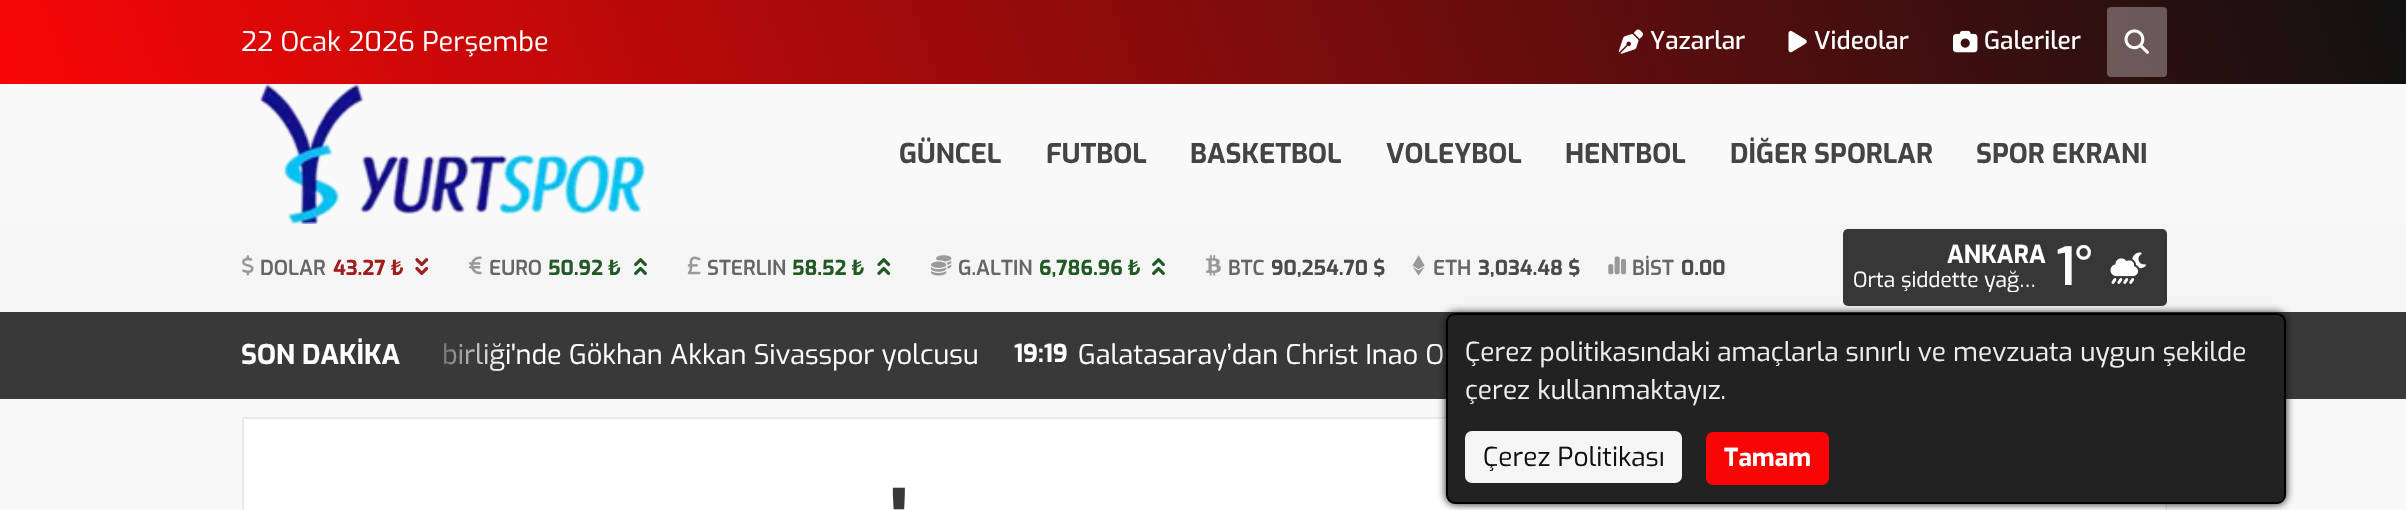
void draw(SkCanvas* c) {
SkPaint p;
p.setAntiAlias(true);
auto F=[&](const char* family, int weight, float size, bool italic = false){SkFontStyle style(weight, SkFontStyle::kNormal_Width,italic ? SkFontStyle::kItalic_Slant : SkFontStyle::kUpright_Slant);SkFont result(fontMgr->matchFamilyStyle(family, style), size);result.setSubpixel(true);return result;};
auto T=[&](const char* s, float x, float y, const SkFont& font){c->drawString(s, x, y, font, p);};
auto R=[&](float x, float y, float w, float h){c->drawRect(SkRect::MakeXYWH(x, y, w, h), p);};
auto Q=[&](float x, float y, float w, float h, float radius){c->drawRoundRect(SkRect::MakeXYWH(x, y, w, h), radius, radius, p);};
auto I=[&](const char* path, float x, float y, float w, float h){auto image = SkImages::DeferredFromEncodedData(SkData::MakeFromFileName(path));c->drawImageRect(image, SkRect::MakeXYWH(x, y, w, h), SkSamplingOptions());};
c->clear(0xfff9f9f9);
{
const SkColor colors[] = {0xff111111,0xfff80606};
const float stops[] = {0,1};
const SkPoint ends[] = {{2279,-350}, {127,434}};
p.setShader(SkGradientShader::MakeLinear(ends, colors, stops, 2, SkTileMode::kClamp));
p.setAlpha(255);
}
R(0,0,2406,84);
auto f1 = F("Exo",400,27.1);
p.setShader(nullptr);
p.setColor(0xffffffff);
T("22 Ocak 2026 Perşembe",241,51,f1);
I("1.png",1618,29,26,25);
auto f2 = F("Exo",500,24.5);
T("Yazarlar",1650,49,f2);
I("2.png",1788,30,19,23);
T("Videolar",1814,49,f2);
I("3.png",1953,30,25,23);
T("Galeriler",1984,49,f2);
p.setColor(0x4dffffff);
Q(2107,7,60,70,4);
I("4.png",2124,29,25,25);
I("5.png",260,84,386,140);
auto f3 = F("Exo",700,27.1);
p.setColor(0xff444444);
T("GÜNCEL",899,163,f3);
T("FUTBOL",1046,163,f3);
T("BASKETBOL",1190,163,f3);
T("VOLEYBOL",1386,163,f3);
T("HENTBOL",1565,163,f3);
T("DİĞER SPORLAR",1730,163,f3);
T("SPOR EKRANI",1976,163,f3);
p.setColor(0xfff5f5f5);
R(0,224,2406,88);
I("6.png",242,255,12,21);
auto f4 = F("Exo",600,20.5);
p.setColor(0xff666666);
T("DOLAR",260,275,f4);
auto f5 = F("Exo",700,20.5);
p.setColor(0xff9f1e1e);
T("43.27 ₺",333,275,f5);
I("7.png",415,258,14,17);
I("8.png",469,256,13,19);
p.setColor(0xff666666);
T("EURO",489,275,f4);
p.setColor(0xff215a25);
T("50.92 ₺",548,275,f5);
I("9.png",634,258,13,17);
I("10.png",687,256,14,19);
p.setColor(0xff666666);
T("STERLIN",707,275,f4);
p.setColor(0xff215a25);
T("58.52 ₺",792,275,f5);
I("11.png",877,258,14,17);
I("12.png",931,255,21,21);
p.setColor(0xff666666);
T("G.ALTIN",958,275,f4);
p.setColor(0xff215a25);
T("6,786.96 ₺",1039,275,f5);
I("9.png",1152,258,13,17);
I("13.png",1205,255,16,21);
p.setColor(0xff666666);
T("BTC",1228,275,f4);
p.setColor(0xff4a4a4a);
T("90,254.70 $",1271,275,f5);
I("14.png",1412,255,13,21);
p.setColor(0xff666666);
T("ETH",1433,275,f4);
p.setColor(0xff4a4a4a);
T("3,034.48 $",1478,275,f5);
I("15.png",1608,256,19,19);
p.setColor(0xff666666);
T("BİST",1632,275,f4);
p.setColor(0xff4a4a4a);
T("0.00",1681,275,f5);
p.setColor(0xff373737);
Q(1843,229,324,77,5);
{
const SkColor colors[] = {0x0a000000,0x00000000};
const float stops[] = {0,1};
const SkPoint ends[] = {{2160,211}, {1849,324}};
p.setShader(SkGradientShader::MakeLinear(ends, colors, stops, 2, SkTileMode::kClamp));
p.setAlpha(255);
}
R(2163,229,4,77);
auto f6 = F("Exo",700,24.5);
p.setShader(nullptr);
p.setColor(0xffffffff);
T("ANKARA",1947,263,f6);
c->save();
c->clipRect(SkRect::MakeXYWH(1853,268,193,24));
auto f7 = F("Exo",400,21);
T("Orta şiddette yağ…",1853,287,f7);
c->restore();
auto f8 = F("Exo",600,52);
T("1°",2056,285,f8);
I("16.png",2110,252,36,32);
p.setColor(0xff393939);
R(0,312,2406,87);
c->save();
c->clipRect(SkRect::MakeXYWH(242,312,1925,87));
p.setColor(0xffffffff);
T("SON DAKİKA",241,364,f3);
c->restore();
T("birliği'nde Gökhan Akkan Sivasspor yolcusu",442,364,f1);
{
const SkColor colors[] = {0xff393939,0x00393939};
const float stops[] = {0,1};
const SkPoint ends[] = {{417,347}, {504,347}};
p.setShader(SkGradientShader::MakeLinear(ends, colors, stops, 2, SkTileMode::kClamp));
p.setAlpha(255);
}
R(443,343,59,28);
p.setShader(nullptr);
p.setColor(0xffffffff);
T("19:19",1014,362,f6);
T("Galatasaray’dan Christ Inao O",1078,364,f1);
c->drawRect(SkRect::MakeXYWH(243,418,1923,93),p);
p.setStroke(true);
p.setStrokeWidth(2);
p.setColor(0xffe9e9e9);
c->drawRect(SkRect::MakeXYWH(243,418,1923,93),p);
p.setStroke(false);
p.setColor(0xff111111);
p.setMaskFilter(SkMaskFilter::MakeBlur(kNormal_SkBlurStyle, 4.5));
c->drawRoundRect(SkRect::MakeXYWH(1446,313,840,191),9,9,p);
p.setMaskFilter(nullptr);
p.setColor(0xff222222);
c->drawRoundRect(SkRect::MakeXYWH(1447,314,838,189),8,8,p);
p.setStroke(true);
p.setColor(0xff000000);
c->drawRoundRect(SkRect::MakeXYWH(1447,314,838,189),8,8,p);
auto f9 = F("Exo",400,26.25);
p.setStroke(false);
p.setColor(0xffeeeeee);
T("Çerez politikasındaki amaçlarla sınırlı ve mevzuata uygun şekilde",1465,361,f9);
T("çerez kullanmaktayız.",1465,399,f9);
p.setColor(0xfff5f5f5);
Q(1465,431,217,52,7);
p.setColor(0xff111111);
T("Çerez Politikası",1483,466,f9);
p.setColor(0xfff80606);
Q(1706,432,123,53,7);
p.setColor(0xffffffff);
T("Tamam",1724,466,f6);
auto f10 = F("Exo",700,84);
p.setColor(0xff393939);
T("'",890,551,f10);
}
